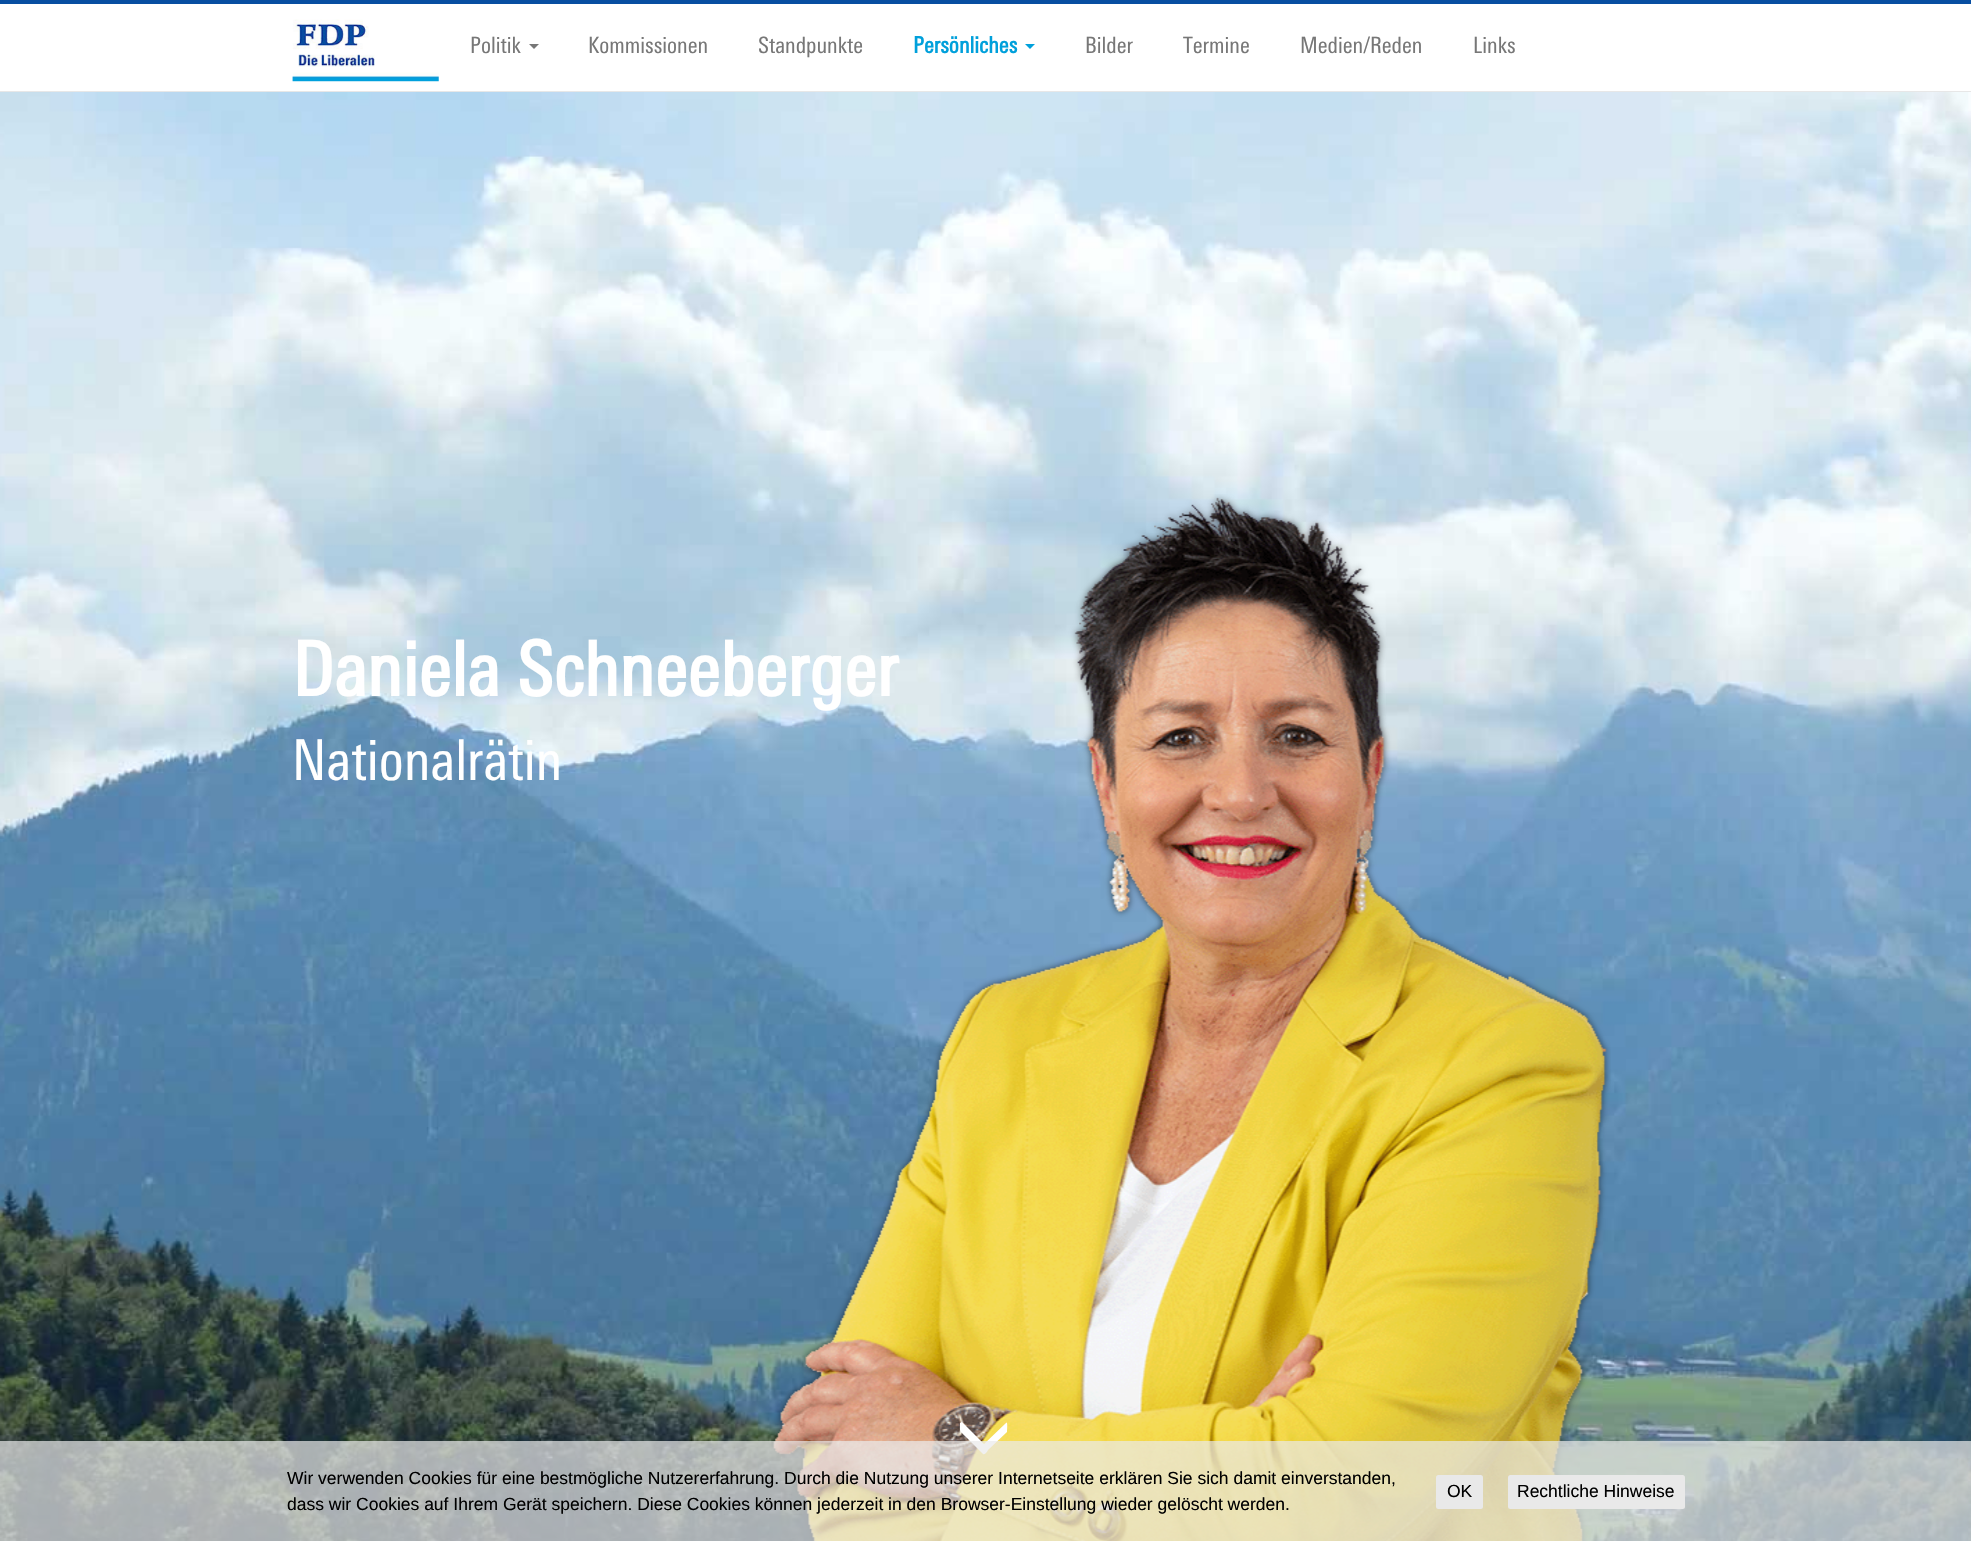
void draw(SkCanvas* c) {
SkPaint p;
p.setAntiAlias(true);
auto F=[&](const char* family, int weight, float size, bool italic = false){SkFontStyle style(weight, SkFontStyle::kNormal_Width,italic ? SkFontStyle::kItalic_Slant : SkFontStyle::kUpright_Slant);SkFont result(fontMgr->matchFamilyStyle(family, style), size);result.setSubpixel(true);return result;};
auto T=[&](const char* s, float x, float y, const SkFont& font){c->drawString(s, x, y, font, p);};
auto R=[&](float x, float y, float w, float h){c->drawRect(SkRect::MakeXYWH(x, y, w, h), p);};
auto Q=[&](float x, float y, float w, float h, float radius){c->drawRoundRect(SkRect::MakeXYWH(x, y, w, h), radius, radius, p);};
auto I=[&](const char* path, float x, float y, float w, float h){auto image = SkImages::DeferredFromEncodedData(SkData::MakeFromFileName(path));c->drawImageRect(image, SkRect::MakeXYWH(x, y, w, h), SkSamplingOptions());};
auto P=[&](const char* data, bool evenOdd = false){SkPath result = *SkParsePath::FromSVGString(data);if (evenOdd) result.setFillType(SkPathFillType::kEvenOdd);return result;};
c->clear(0xffffffff);
p.setColor(0xff074ea1);
R(0,0,1971,4);
p.setColor(0xffe7e7e7);
R(0,91,1971,1);
I("1.png",292,19,147,63);
auto f1 = F("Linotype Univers",400,22.5);
p.setColor(0xff777777);
T("Politik",470,53,f1);
c->drawPath(P("M529 44h10l-5 5z"),p);
T("Kommissionen",588,53,f1);
T("Standpunkte",758,53,f1);
auto f2 = F("Linotype Univers",700,22.5);
p.setColor(0xff00a0db);
T("Persönliches",913,53,f2);
c->drawPath(P("M1025 44h10l-5 5z"),p);
p.setColor(0xff777777);
T("Bilder",1085,53,f1);
T("Termine",1183,53,f1);
T("Medien/Reden",1300,53,f1);
T("Links",1473,53,f1);
I("2.png",0,92,1971,1449);
I("3.png",771,494,840,1047);
auto f3 = F("Linotype Univers",700,75);
p.setColor(0xffffffff);
T("Daniela Schneeberger",292,696,f3);
auto f4 = F("Linotype Univers",400,56.25);
T("Nationalrätin",292,780,f4);
c->drawPath(P("M1006 1423c2-3 1 8 1 9l-19 18c-1 2-3 5-5 4l-18-18c-6-6-5-4-5-13c0 0 1-1 2-1l22 22z"),p);
p.setColor(0xb3e9e9e9);
R(0,1441,1971,100);
auto f5 = F("Liberation Sans",400,17.5);
p.setColor(0xff000000);
T("Wir verwenden Cookies für eine bestmögliche Nutzererfahrung. Durch die Nutzung unserer Internetseite erklären Sie sich damit einverstanden,",287,1484,f5);
T("dass wir Cookies auf Ihrem Gerät speichern. Diese Cookies können jederzeit in den Browser-Einstellung wieder gelöscht werden.",287,1510,f5);
p.setColor(0xffe9e9e9);
Q(1436,1475,47,34,2.5);
p.setColor(0xff000000);
T("OK",1447,1497,f5);
p.setColor(0xffe9e9e9);
Q(1508,1475,177,34,2.5);
p.setColor(0xff000000);
T("Rechtliche Hinweise",1517,1497,f5);
}
